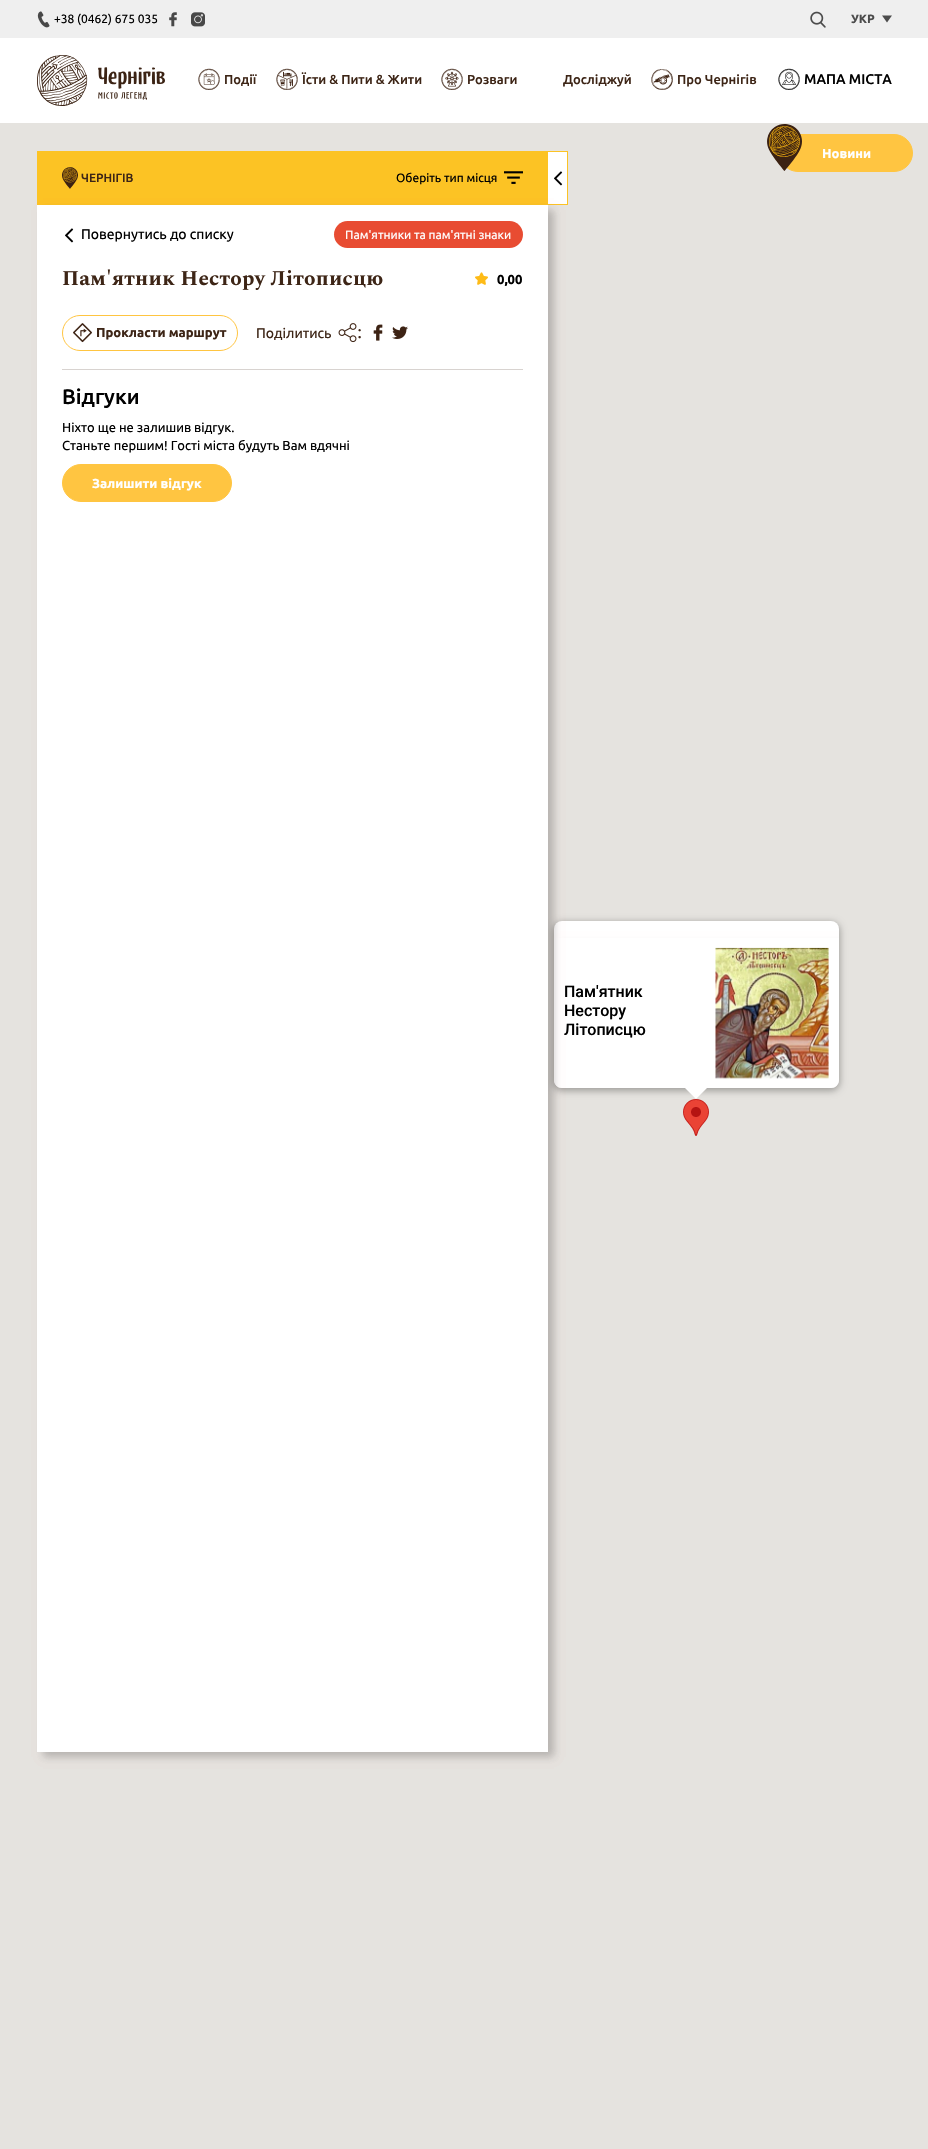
void draw(SkCanvas* c) {
SkPaint p;
p.setAntiAlias(true);
auto F=[&](const char* family, int weight, float size, bool italic = false){SkFontStyle style(weight, SkFontStyle::kNormal_Width,italic ? SkFontStyle::kItalic_Slant : SkFontStyle::kUpright_Slant);SkFont result(fontMgr->matchFamilyStyle(family, style), size);result.setSubpixel(true);return result;};
auto T=[&](const char* s, float x, float y, const SkFont& font){c->drawString(s, x, y, font, p);};
auto L=[&](const char* s, float x, float y, const SkFont& font, const SkPaint& ink, float letter, float word){std::vector<SkGlyphID> glyphs(font.countText(s, strlen(s), SkTextEncoding::kUTF8));std::vector<float> xs(glyphs.size());font.textToGlyphs(s, strlen(s), SkTextEncoding::kUTF8, glyphs);font.getXPos(glyphs, xs, x);float extra = 0;for (size_t i = 0; i < glyphs.size(); i++) {xs[i] += extra;extra += letter + word * (glyphs[i] == font.unicharToGlyph(' '));}c->drawTextBlob(SkTextBlob::MakeFromPosHGlyphs(glyphs, xs, y, font), 0, 0, ink);};
auto R=[&](float x, float y, float w, float h){c->drawRect(SkRect::MakeXYWH(x, y, w, h), p);};
auto Q=[&](float x, float y, float w, float h, float radius){c->drawRoundRect(SkRect::MakeXYWH(x, y, w, h), radius, radius, p);};
auto I=[&](const char* path, float x, float y, float w, float h){auto image = SkImages::DeferredFromEncodedData(SkData::MakeFromFileName(path));c->drawImageRect(image, SkRect::MakeXYWH(x, y, w, h), SkSamplingOptions());};
auto P=[&](const char* data, bool evenOdd = false){SkPath result = *SkParsePath::FromSVGString(data);if (evenOdd) result.setFillType(SkPathFillType::kEvenOdd);return result;};
c->clear(0xffffffff);
p.setColor(0xffefefef);
R(0,0,928,38);
I("1.png",37,11,13,17);
auto f1 = F("Ubuntu",400,12);
p.setColor(0xff000000);
T("+38 (0462) 675 035",54,23,f1);
I("2.png",169,12,8,15);
I("3.png",191,12,14,15);
I("4.png",810,11,16,17);
auto f2 = F("Ubuntu",700,12);
p.setColor(0xff4c4c4c);
T("УКР",851,23,f2);
c->drawPath(P("M882 15.5h10l-5 7z"),p);
I("5.png",37,55,128,51);
I("6.png",198,68,22,22);
auto f3 = F("Ubuntu",500,13);
p.setColor(0xff3d2516);
T("Події",224,84,f3);
I("7.png",276,68,22,22);
T("Їсти & Пити & Жити",302,84,f3);
I("8.png",441,68,22,22);
T("Розваги",467,84,f3);
T("Досліджуй",563,84,f3);
I("9.png",651,69,22,21);
T("Про Чернігів",677,84,f3);
I("10.png",778,68,22,22);
auto f4 = F("Ubuntu",500,14);
p.setColor(0xff000000);
T("МАПА МІСТА",804,84,f4);
p.setColor(0xffe5e3df);
R(0,123,928,2026);
p.setColor(0xffffc541);
c->drawRoundRect(SkRect::MakeXYWH(779.5,134.5,133,37),18.5,18.5,p);
p.setStroke(true);
p.setStrokeWidth(1);
c->drawRoundRect(SkRect::MakeXYWH(779.5,134.5,133,37),18.5,18.5,p);
I("11.png",767,124,35,47);
auto f5 = F("Ubuntu",700,13);
p.setStroke(false);
p.setColor(0xffffffff);
T("Новини",822,158,f5);
p.setColor(0xfffcc324);
R(37,151,511,54);
I("12.png",62,167,16,22);
auto f6 = F("Ubuntu",500,12);
p.setColor(0xff3d2516);
T("ЧЕРНІГІВ",81,182,f6);
p.setColor(0xff000000);
T("Оберіть тип місця",396,182,f1);
I("13.png",504,171,19,13);
p.setColor(0xffffffff);
R(548,152,19,52);
p.setColor(0xfffcc324);
R(548,151,20,1);
R(567,151,1,54);
R(548,204,20,1);
I("14.png",554,171,9,15);
I("21.png",683,1099,26,37);
p.setColor(0x4d000000);
p.setMaskFilter(SkMaskFilter::MakeBlur(kNormal_SkBlurStyle, 3.5));
c->drawRoundRect(SkRect::MakeXYWH(553,922,287,169),9,9,p);
p.setMaskFilter(nullptr);
p.setColor(0xffffffff);
Q(554,921,285,167,8);
c->save();
c->clipPath(P("M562 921h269c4.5 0 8 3.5 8 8v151c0 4.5-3.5 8-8 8h-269c-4.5 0-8-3.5-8-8v-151c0-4.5 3.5-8 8-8z"),true);
p.setColor(0x1c070000);
p.setMaskFilter(SkMaskFilter::MakeBlur(kNormal_SkBlurStyle, 4));
c->drawRect(SkRect::MakeXYWH(560,943,285,150),p);
p.setMaskFilter(nullptr);
c->restore();
p.setColor(0xffffffff);
c->drawPath(P("M554 938h285v142c0 4.5-3.5 8-8 8h-269c-4.5 0-8-3.5-8-8z"),p);
p.setColor(0x1c070000);
p.setMaskFilter(SkMaskFilter::MakeBlur(kNormal_SkBlurStyle, 4));
c->drawRect(SkRect::MakeXYWH(43,210,511,1547),p);
p.setMaskFilter(nullptr);
p.setMaskFilter(SkMaskFilter::MakeBlur(kNormal_SkBlurStyle, 4));
c->drawRect(SkRect::MakeXYWH(43,210,511,1547),p);
p.setMaskFilter(nullptr);
p.setColor(0xffffffff);
R(37,205,511,1547);
I("14.png",65,228,9,15);
auto f7 = F("Ubuntu",400,14);
p.setColor(0xff000000);
T("Повернутись до списку",81,239,f7);
p.setColor(0xffe84c32);
Q(334,221,189,27,13.5);
p.setColor(0xffffffff);
T("Пам'ятники та пам'ятні знаки",345,239,f1);
auto f8 = F("Spectral",700,21);
p.setColor(0xff3d2516);
L("Пам'ятник Нестору Літописцю",62,285,f8,p,.25,0);
I("15.png",475,272,13,13);
p.setColor(0xff000000);
T("0,00",497,284,f5);
p.setStroke(true);
p.setColor(0xffffc541);
c->drawRoundRect(SkRect::MakeXYWH(62.5,315.5,175,35),17.5,17.5,p);
I("16.png",73,323,19,20);
p.setStroke(false);
p.setColor(0xff3d2516);
T("Прокласти маршрут",96,337,f5);
T("Поділитись",256,338,f7);
I("17.png",338,323,19,20);
auto f9 = F("Liberation Serif",400,19);
T(":",357,338,f9);
I("18.png",373,324,10,17);
I("19.png",392,326,16,13);
p.setColor(0xffd8d3d0);
R(62,369,461,1);
auto f10 = F("Ubuntu",500,21);
p.setColor(0xff000000);
T("Відгуки",62,404,f10);
auto f11 = F("Ubuntu",400,13);
T("Ніхто ще не залишив відгук.",62,432,f11);
T("Станьте першим! Гості міста будуть Вам вдячні",62,450,f11);
p.setColor(0xffffc541);
c->drawRoundRect(SkRect::MakeXYWH(62.5,464.5,169,37),18.5,18.5,p);
p.setStroke(true);
c->drawRoundRect(SkRect::MakeXYWH(62.5,464.5,169,37),18.5,18.5,p);
p.setStroke(false);
p.setColor(0xffffffff);
T("Залишити відгук",92,488,f5);
auto f12 = F("Roboto",500,16);
p.setColor(0xff000000);
T("Пам'ятник",564,997,f12);
T("Нестору",564,1016,f12);
T("Літописцю",564,1035,f12);
I("20.png",715,947,114,132);
p.setColor(0xffffffff);
c->drawPath(P("M684 1087l12 12l12-12z"),p);
}
